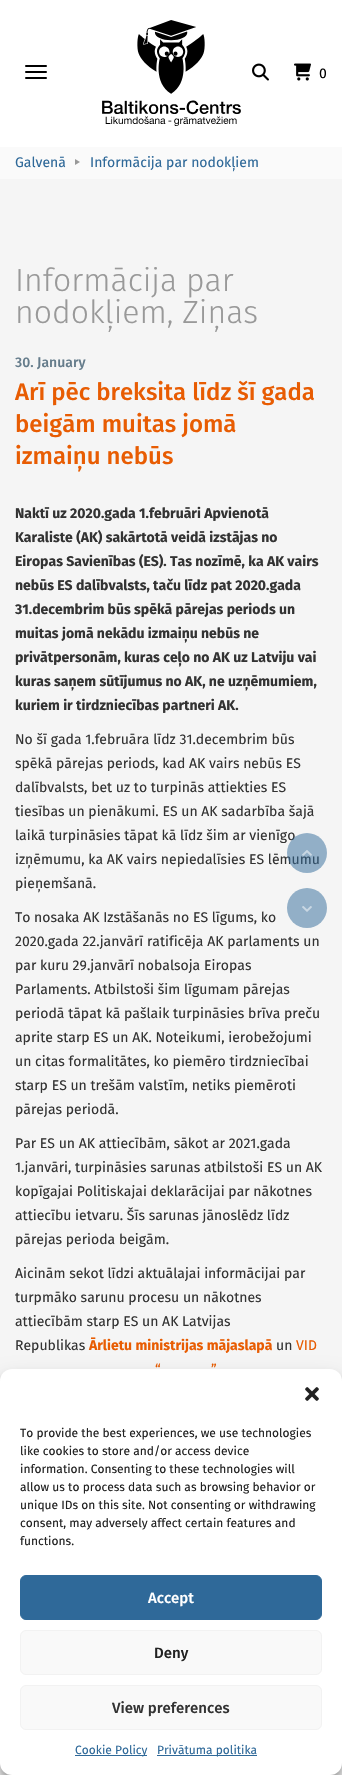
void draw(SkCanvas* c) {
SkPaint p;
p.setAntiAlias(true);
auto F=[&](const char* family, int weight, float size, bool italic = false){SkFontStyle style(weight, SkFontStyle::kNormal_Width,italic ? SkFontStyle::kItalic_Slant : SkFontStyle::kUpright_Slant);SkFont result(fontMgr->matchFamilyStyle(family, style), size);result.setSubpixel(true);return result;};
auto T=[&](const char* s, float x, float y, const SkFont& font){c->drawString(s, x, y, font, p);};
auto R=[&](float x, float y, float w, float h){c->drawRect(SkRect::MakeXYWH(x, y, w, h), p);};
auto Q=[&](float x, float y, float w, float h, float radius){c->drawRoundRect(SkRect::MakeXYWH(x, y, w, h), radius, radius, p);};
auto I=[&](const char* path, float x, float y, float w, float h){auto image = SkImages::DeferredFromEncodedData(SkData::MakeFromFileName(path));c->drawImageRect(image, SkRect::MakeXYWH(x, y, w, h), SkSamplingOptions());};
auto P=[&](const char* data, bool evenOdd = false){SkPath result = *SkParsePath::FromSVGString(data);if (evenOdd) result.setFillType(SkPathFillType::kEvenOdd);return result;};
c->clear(0xfff5f5f5);
p.setColor(0xffffffff);
R(0,0,342,147);
I("1.png",102,20,139,106);
p.setColor(0xff000000);
Q(25,65,22,2,1);
Q(25,71,22,2,1);
Q(25,77,22,2,1);
I("2.png",252,63,17,18);
I("3.png",294,63,17,18);
auto f1 = F("Fira Sans",400,14);
T("0",319,78,f1);
p.setColor(0xfffafafa);
R(0,147,342,32);
p.setColor(0xff2f6999);
T("Galvenā",15,167,f1);
p.setColor(0xff999999);
c->drawPath(P("M75 165v-6l5 3z"),p);
p.setColor(0xff2f6999);
T("Informācija par nodokļiem",90,167,f1);
auto f2 = F("Fira Sans",300,32);
p.setColor(0xff999999);
T("Informācija par",15,291,f2);
T("nodokļiem, Ziņas",15,323,f2);
auto f3 = F("Fira Sans",500,14);
p.setColor(0xff657c8b);
T("30. January",15,367,f3);
auto f4 = F("Fira Sans",500,24);
p.setColor(0xffe85c02);
T("Arī pēc breksita līdz šī gada",15,400,f4);
T("beigām muitas jomā",15,432,f4);
T("izmaiņu nebūs",15,464,f4);
auto f5 = F("Fira Sans",700,14);
p.setColor(0xff333333);
T("Naktī uz 2020.gada 1.februāri Apvienotā",15,518,f5);
T("Karaliste (AK) sakārtotā veidā izstājas no",15,542,f5);
T("Eiropas Savienības (ES). Tas nozīmē, ka AK vairs",15,566,f5);
T("nebūs ES dalībvalsts, taču līdz pat 2020.gada",15,590,f5);
T("31.decembrim būs spēkā pārejas periods un",15,614,f5);
T("muitas jomā nekādu izmaiņu nebūs ne",15,638,f5);
T("privātpersonām, kuras ceļo no AK uz Latviju vai",15,662,f5);
T("kuras saņem sūtījumus no AK, ne uzņēmumiem,",15,686,f5);
T("kuriem ir tirdzniecības partneri AK.",15,710,f5);
T("No šī gada 1.februāra līdz 31.decembrim būs",15,744,f1);
T("spēkā pārejas periods, kad AK vairs nebūs ES",15,768,f1);
T("dalībvalsts, bet uz to turpinās attiekties ES",15,792,f1);
T("tiesības un pienākumi. ES un AK sadarbība šajā",15,816,f1);
T("laikā turpināsies tāpat kā līdz šim ar vienīgo",15,840,f1);
T("izņēmumu, ka AK vairs nepiedalīsies ES lēmumu",15,864,f1);
T("pieņemšanā.",15,888,f1);
T("To nosaka AK Izstāšanās no ES līgums, ko",15,922,f1);
T("2020.gada 22.janvārī ratificēja AK parlaments un",15,946,f1);
T("par kuru 29.janvārī nobalsoja Eiropas",15,970,f1);
T("Parlaments. Atbilstoši šim līgumam pārejas",15,994,f1);
T("periodā tāpat kā pašlaik turpināsies brīva preču",15,1018,f1);
T("aprite starp ES un AK. Noteikumi, ierobežojumi",15,1042,f1);
T("un citas formalitātes, ko piemēro tirdzniecībai",15,1066,f1);
T("starp ES un trešām valstīm, netiks piemēroti",15,1090,f1);
T("pārejas periodā.",15,1114,f1);
T("Par ES un AK attiecībām, sākot ar 2021.gada",15,1148,f1);
T("1.janvāri, turpināsies sarunas atbilstoši ES un AK",15,1172,f1);
T("kopīgajai Politiskajai deklarācijai par nākotnes",15,1196,f1);
T("attiecību ietvaru. Šīs sarunas jānoslēdz līdz",15,1220,f1);
T("pārejas perioda beigām.",15,1244,f1);
T("Aicinām sekot līdzi aktuālajai informācijai par",15,1278,f1);
T("turpmāko sarunu procesu un nākotnes",15,1302,f1);
T("attiecībām starp ES un AK Latvijas",15,1326,f1);
T("Republikas",15,1350,f1);
p.setColor(0xffe85c02);
T("Ārlietu ministrijas mājaslapā",89,1350,f5);
p.setColor(0xff333333);
T("un",276,1350,f1);
p.setColor(0xffe85c02);
T("VID",296,1350,f1);
T("“",155,1374,f1);
T("”",211,1374,f1);
p.setColor(0x802f6999);
c->drawCircle(307,853,20,p);
I("4.png",302,850,10,6);
p.setColor(0xff92afc7);
c->drawCircle(307,908,20,p);
I("5.png",302,906,10,6);
p.setColor(0x3b000000);
p.setMaskFilter(SkMaskFilter::MakeBlur(kNormal_SkBlurStyle, 3));
c->drawRoundRect(SkRect::MakeXYWH(0,1375,342,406),12,12,p);
p.setMaskFilter(nullptr);
p.setColor(0x30000000);
p.setMaskFilter(SkMaskFilter::MakeBlur(kNormal_SkBlurStyle, 10));
c->drawRoundRect(SkRect::MakeXYWH(0,1379,342,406),12,12,p);
p.setMaskFilter(nullptr);
p.setColor(0xffffffff);
Q(0,1369,342,406,12);
I("6.png",305,1387,14,14);
auto f6 = F("Fira Sans",400,12);
p.setColor(0xff222222);
T("To provide the best experiences, we use technologies",20,1437,f6);
T("like cookies to store and/or access device",20,1455,f6);
T("information. Consenting to these technologies will",20,1473,f6);
T("allow us to process data such as browsing behavior or",20,1491,f6);
T("unique IDs on this site. Not consenting or withdrawing",20,1509,f6);
T("consent, may adversely affect certain features and",20,1527,f6);
T("functions.",20,1545,f6);
p.setColor(0xff2f6999);
c->drawRoundRect(SkRect::MakeXYWH(20.5,1575.5,301,44),5.5,5.5,p);
p.setStroke(true);
p.setStrokeWidth(1);
c->drawRoundRect(SkRect::MakeXYWH(20.5,1575.5,301,44),5.5,5.5,p);
auto f7 = F("Fira Sans",500,15);
p.setStroke(false);
p.setColor(0xffffffff);
T("Accept",148,1603,f7);
p.setColor(0xfff9f9f9);
c->drawRoundRect(SkRect::MakeXYWH(20.5,1630.5,301,44),5.5,5.5,p);
p.setStroke(true);
p.setColor(0xfff2f2f2);
c->drawRoundRect(SkRect::MakeXYWH(20.5,1630.5,301,44),5.5,5.5,p);
p.setStroke(false);
p.setColor(0xff222222);
T("Deny",154,1658,f7);
p.setColor(0xfff9f9f9);
c->drawRoundRect(SkRect::MakeXYWH(20.5,1685.5,301,44),5.5,5.5,p);
p.setStroke(true);
p.setColor(0xfff2f2f2);
c->drawRoundRect(SkRect::MakeXYWH(20.5,1685.5,301,44),5.5,5.5,p);
p.setStroke(false);
p.setColor(0xff333333);
T("View preferences",112,1713,f7);
p.setColor(0xff2f6999);
R(75,1755,72,1);
T("Cookie Policy",75,1754,f6);
R(157,1755,100,1);
T("Privātuma politika",157,1754,f6);
}
